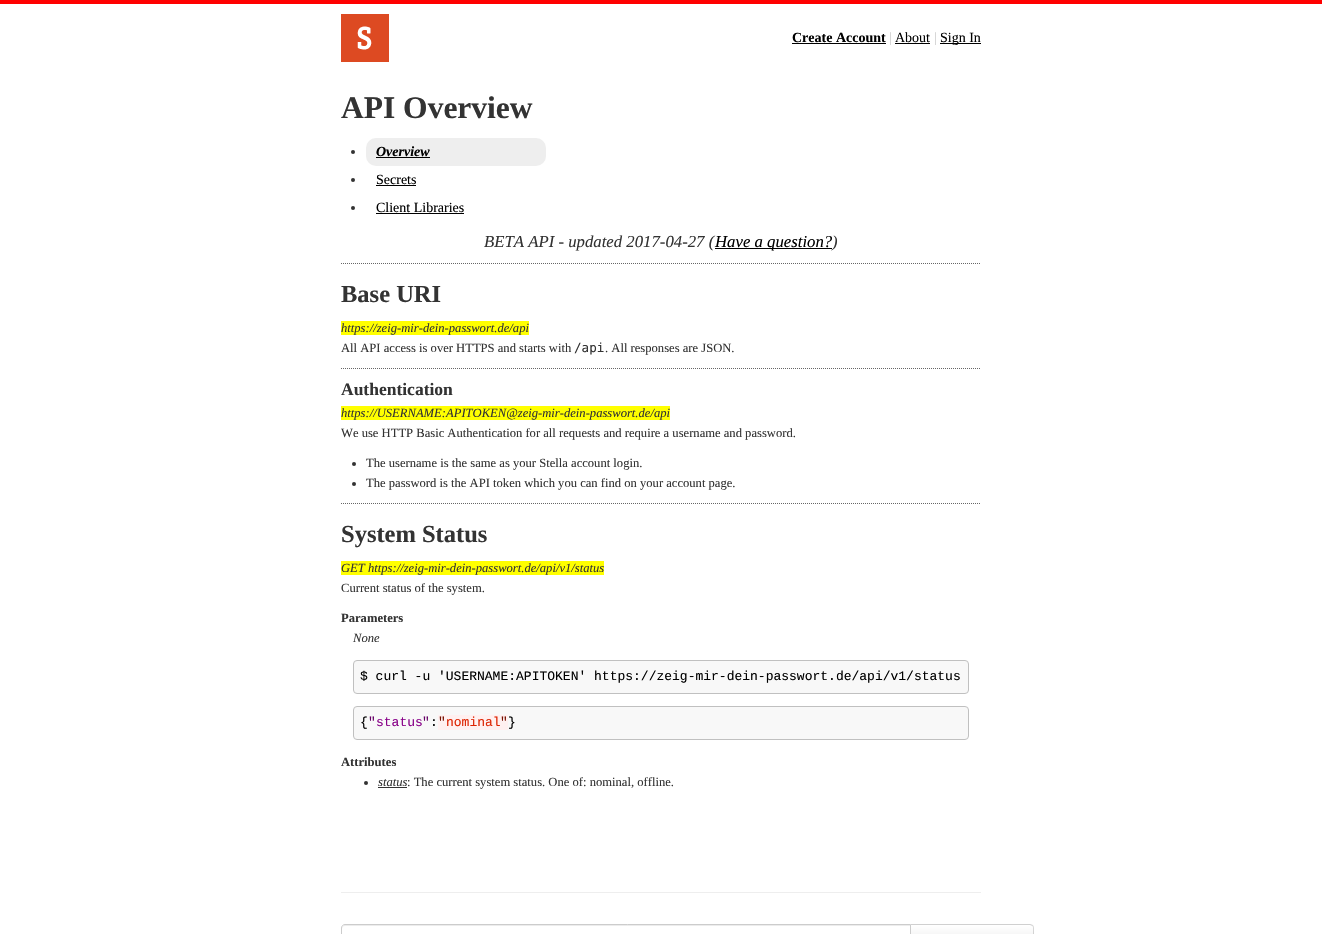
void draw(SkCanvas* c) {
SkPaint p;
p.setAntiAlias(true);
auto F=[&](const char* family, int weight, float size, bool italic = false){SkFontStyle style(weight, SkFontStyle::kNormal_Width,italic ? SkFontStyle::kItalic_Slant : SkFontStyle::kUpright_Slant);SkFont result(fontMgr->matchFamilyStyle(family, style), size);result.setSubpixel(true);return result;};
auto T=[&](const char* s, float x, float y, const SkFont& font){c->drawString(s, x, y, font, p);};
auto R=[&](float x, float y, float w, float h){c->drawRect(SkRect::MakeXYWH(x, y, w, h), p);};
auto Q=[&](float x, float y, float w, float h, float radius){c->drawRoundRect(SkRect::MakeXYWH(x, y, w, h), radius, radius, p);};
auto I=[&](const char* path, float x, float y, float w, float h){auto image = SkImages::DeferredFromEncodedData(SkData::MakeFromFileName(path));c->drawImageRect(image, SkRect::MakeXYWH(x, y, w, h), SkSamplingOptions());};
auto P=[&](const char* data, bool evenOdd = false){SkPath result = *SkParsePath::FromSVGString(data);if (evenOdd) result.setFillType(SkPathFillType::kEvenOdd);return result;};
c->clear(0xffffffff);
p.setColor(0xffff0000);
R(0,0,1322,4);
I("1.png",341,14,48,48);
auto f1 = F("Liberation Serif",700,14);
p.setColor(0xff000000);
T("Create Account",792,42,f1);
R(792,43,94,1);
auto f2 = F("Liberation Serif",400,14);
p.setColor(0xffcccccc);
T("|",889,42,f2);
p.setColor(0xff000000);
T("About",895,42,f2);
R(895,43,35,1);
p.setColor(0xffcccccc);
T("|",934,42,f2);
p.setColor(0xff000000);
R(940,43,41,1);
T("Sign In",940,42,f2);
auto f3 = F("Liberation Serif",700,31.5);
p.setColor(0xff333333);
T("API Overview",341,118,f3);
p.setColor(0xffeeeeee);
Q(366,138,180,28,10);
p.setColor(0xff333333);
c->drawCircle(353,152,2,p);
auto f4 = F("Liberation Serif",700,14,true);
p.setColor(0xff000000);
T("Overview",376,156,f4);
R(376,157,54,1);
p.setColor(0xff333333);
c->drawCircle(353,180,2,p);
p.setColor(0xff000000);
T("Secrets",376,184,f2);
R(376,185,40,1);
p.setColor(0xff333333);
c->drawCircle(353,208,2,p);
p.setColor(0xff000000);
T("Client Libraries",376,212,f2);
R(376,213,88,1);
auto f5 = F("Liberation Serif",400,16.75,true);
p.setColor(0xff333333);
T("BETA API - updated 2017-04-27 (",484,247,f5);
p.setColor(0xff000000);
R(715,248,117,1);
T("Have a question?",715,247,f5);
p.setColor(0xff333333);
T(")",832,247,f5);
p.setStroke(true);
p.setStrokeWidth(1);
p.setColor(0xff666666);
p.setPathEffect(SkDashPathEffect::Make({{1,1}}, 0));
c->drawPath(P("M341 263.5h640"),p);
p.setPathEffect(nullptr);
auto f6 = F("Liberation Serif",700,24.5);
p.setStroke(false);
p.setColor(0xff333333);
T("Base URI",341,302,f6);
p.setColor(0xffffff00);
R(341,321,188,14);
auto f7 = F("Liberation Serif",400,12.6,true);
p.setColor(0xff333333);
T("https://zeig-mir-dein-passwort.de/api",341,332,f7);
auto f8 = F("Liberation Serif",400,12.6);
T("All API access is over HTTPS and starts with",341,352,f8);
auto f9 = F("DejaVu Sans Mono",400,12.6);
T("/api",574,352,f9);
T(". All responses are JSON.",605,352,f8);
p.setStroke(true);
p.setColor(0xff666666);
p.setPathEffect(SkDashPathEffect::Make({{1,1}}, 0));
c->drawPath(P("M341 368.5h640"),p);
p.setPathEffect(nullptr);
auto f10 = F("Liberation Serif",700,17.5);
p.setStroke(false);
p.setColor(0xff333333);
T("Authentication",341,395,f10);
p.setColor(0xffffff00);
R(341,406,329,14);
p.setColor(0xff333333);
T("https://USERNAME:APITOKEN@zeig-mir-dein-passwort.de/api",341,417,f7);
T("We use HTTP Basic Authentication for all requests and require a username and password.",341,437,f8);
c->drawCircle(354,464,2,p);
T("The username is the same as your Stella account login.",366,467,f8);
c->drawCircle(354,484,2,p);
T("The password is the API token which you can find on your account page.",366,487,f8);
p.setStroke(true);
p.setColor(0xff666666);
p.setPathEffect(SkDashPathEffect::Make({{1,1}}, 0));
c->drawPath(P("M341 503.5h640"),p);
p.setPathEffect(nullptr);
p.setStroke(false);
p.setColor(0xff333333);
T("System Status",341,542,f6);
p.setColor(0xffffff00);
R(341,561,263,14);
p.setColor(0xff333333);
T("GET https://zeig-mir-dein-passwort.de/api/v1/status",341,572,f7);
T("Current status of the system.",341,592,f8);
auto f11 = F("Liberation Serif",700,12.6);
T("Parameters",341,622,f11);
T("None",353,642,f7);
p.setColor(0xfff8f8f8);
c->drawRoundRect(SkRect::MakeXYWH(353.5,660.5,615,33),3.5,3.5,p);
p.setStroke(true);
p.setColor(0xffc0c0c0);
c->drawRoundRect(SkRect::MakeXYWH(353.5,660.5,615,33),3.5,3.5,p);
auto f12 = F("Liberation Mono",400,13);
p.setStroke(false);
p.setColor(0xff000000);
T("$ curl -u 'USERNAME:APITOKEN' https://zeig-mir-dein-passwort.de/api/v1/status",360,680,f12);
p.setColor(0xfff8f8f8);
c->drawRoundRect(SkRect::MakeXYWH(353.5,706.5,615,33),3.5,3.5,p);
p.setStroke(true);
p.setColor(0xffc0c0c0);
c->drawRoundRect(SkRect::MakeXYWH(353.5,706.5,615,33),3.5,3.5,p);
p.setStroke(false);
p.setColor(0xff000000);
T("{",360,726,f12);
p.setColor(0xff660066);
T("\"",368,726,f12);
p.setColor(0xff880088);
T("status",376,726,f12);
p.setColor(0xff660066);
T("\"",422,726,f12);
p.setColor(0xff000000);
T(":",430,726,f12);
p.setColor(0xfffff0f0);
R(438,715,70,15);
p.setColor(0xff771100);
T("\"",438,726,f12);
p.setColor(0xffdd2200);
T("nominal",446,726,f12);
p.setColor(0xff771100);
T("\"",500,726,f12);
p.setColor(0xff000000);
T("}",508,726,f12);
p.setColor(0xff333333);
T("Attributes",341,766,f11);
c->drawCircle(366,783,2,p);
T("status",378,786,f7);
R(378,787,29,1);
T(": The current system status. One of: nominal, offline.",407,786,f8);
p.setColor(0xffeeeeee);
R(341,892,640,1);
p.setColor(0xfff5f5f5);
c->drawPath(P("M910 924h120c2 0 4 2 4 4v6c0 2-2 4-4 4h-120z"),p);
c->save();
c->clipPath(P("M910 924h120c2 0 4 2 4 4v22c0 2-2 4-4 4h-120z"),true);
{
const SkColor colors[] = {0xffffffff,0xffe6e6e6};
const float stops[] = {0,1};
const SkPoint ends[] = {{972,925}, {972,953}};
p.setShader(SkGradientShader::MakeLinear(ends, colors, stops, 2, SkTileMode::kClamp));
p.setAlpha(255);
}
R(911,925,123,9);
c->restore();
p.setShader(nullptr);
p.setColor(0x26000000);
c->drawPath(P("M910 924l1 1h119l2 1l1-1l-3-1z"),p);
p.setColor(0xffffffff);
c->drawPath(P("M345 924h566v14h-566c-2 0-4-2-4-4v-6c0-2 2-4 4-4z"),p);
p.setColor(0xffececec);
c->drawPath(P("M345 926h565v-1h-565c-2 0-3 1-3 3v1c0-2 1-3 3-3z"),p);
p.setStroke(true);
p.setColor(0xffcccccc);
c->drawPath(P("M345 924.5h565.5v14h-565.5c-2 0-3.5-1.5-3.5-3.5v-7c0-2 1.5-3.5 3.5-3.5z"),p);
p.setStroke(false);
p.setColor(0x26000000);
c->drawPath(P("M1034 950v-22c0-1-.5-2-1-3l-1 1c1 0 1 1 1 2v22c0 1 0 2-1 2l1 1c.5-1 1-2 1-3z"),p);
}
